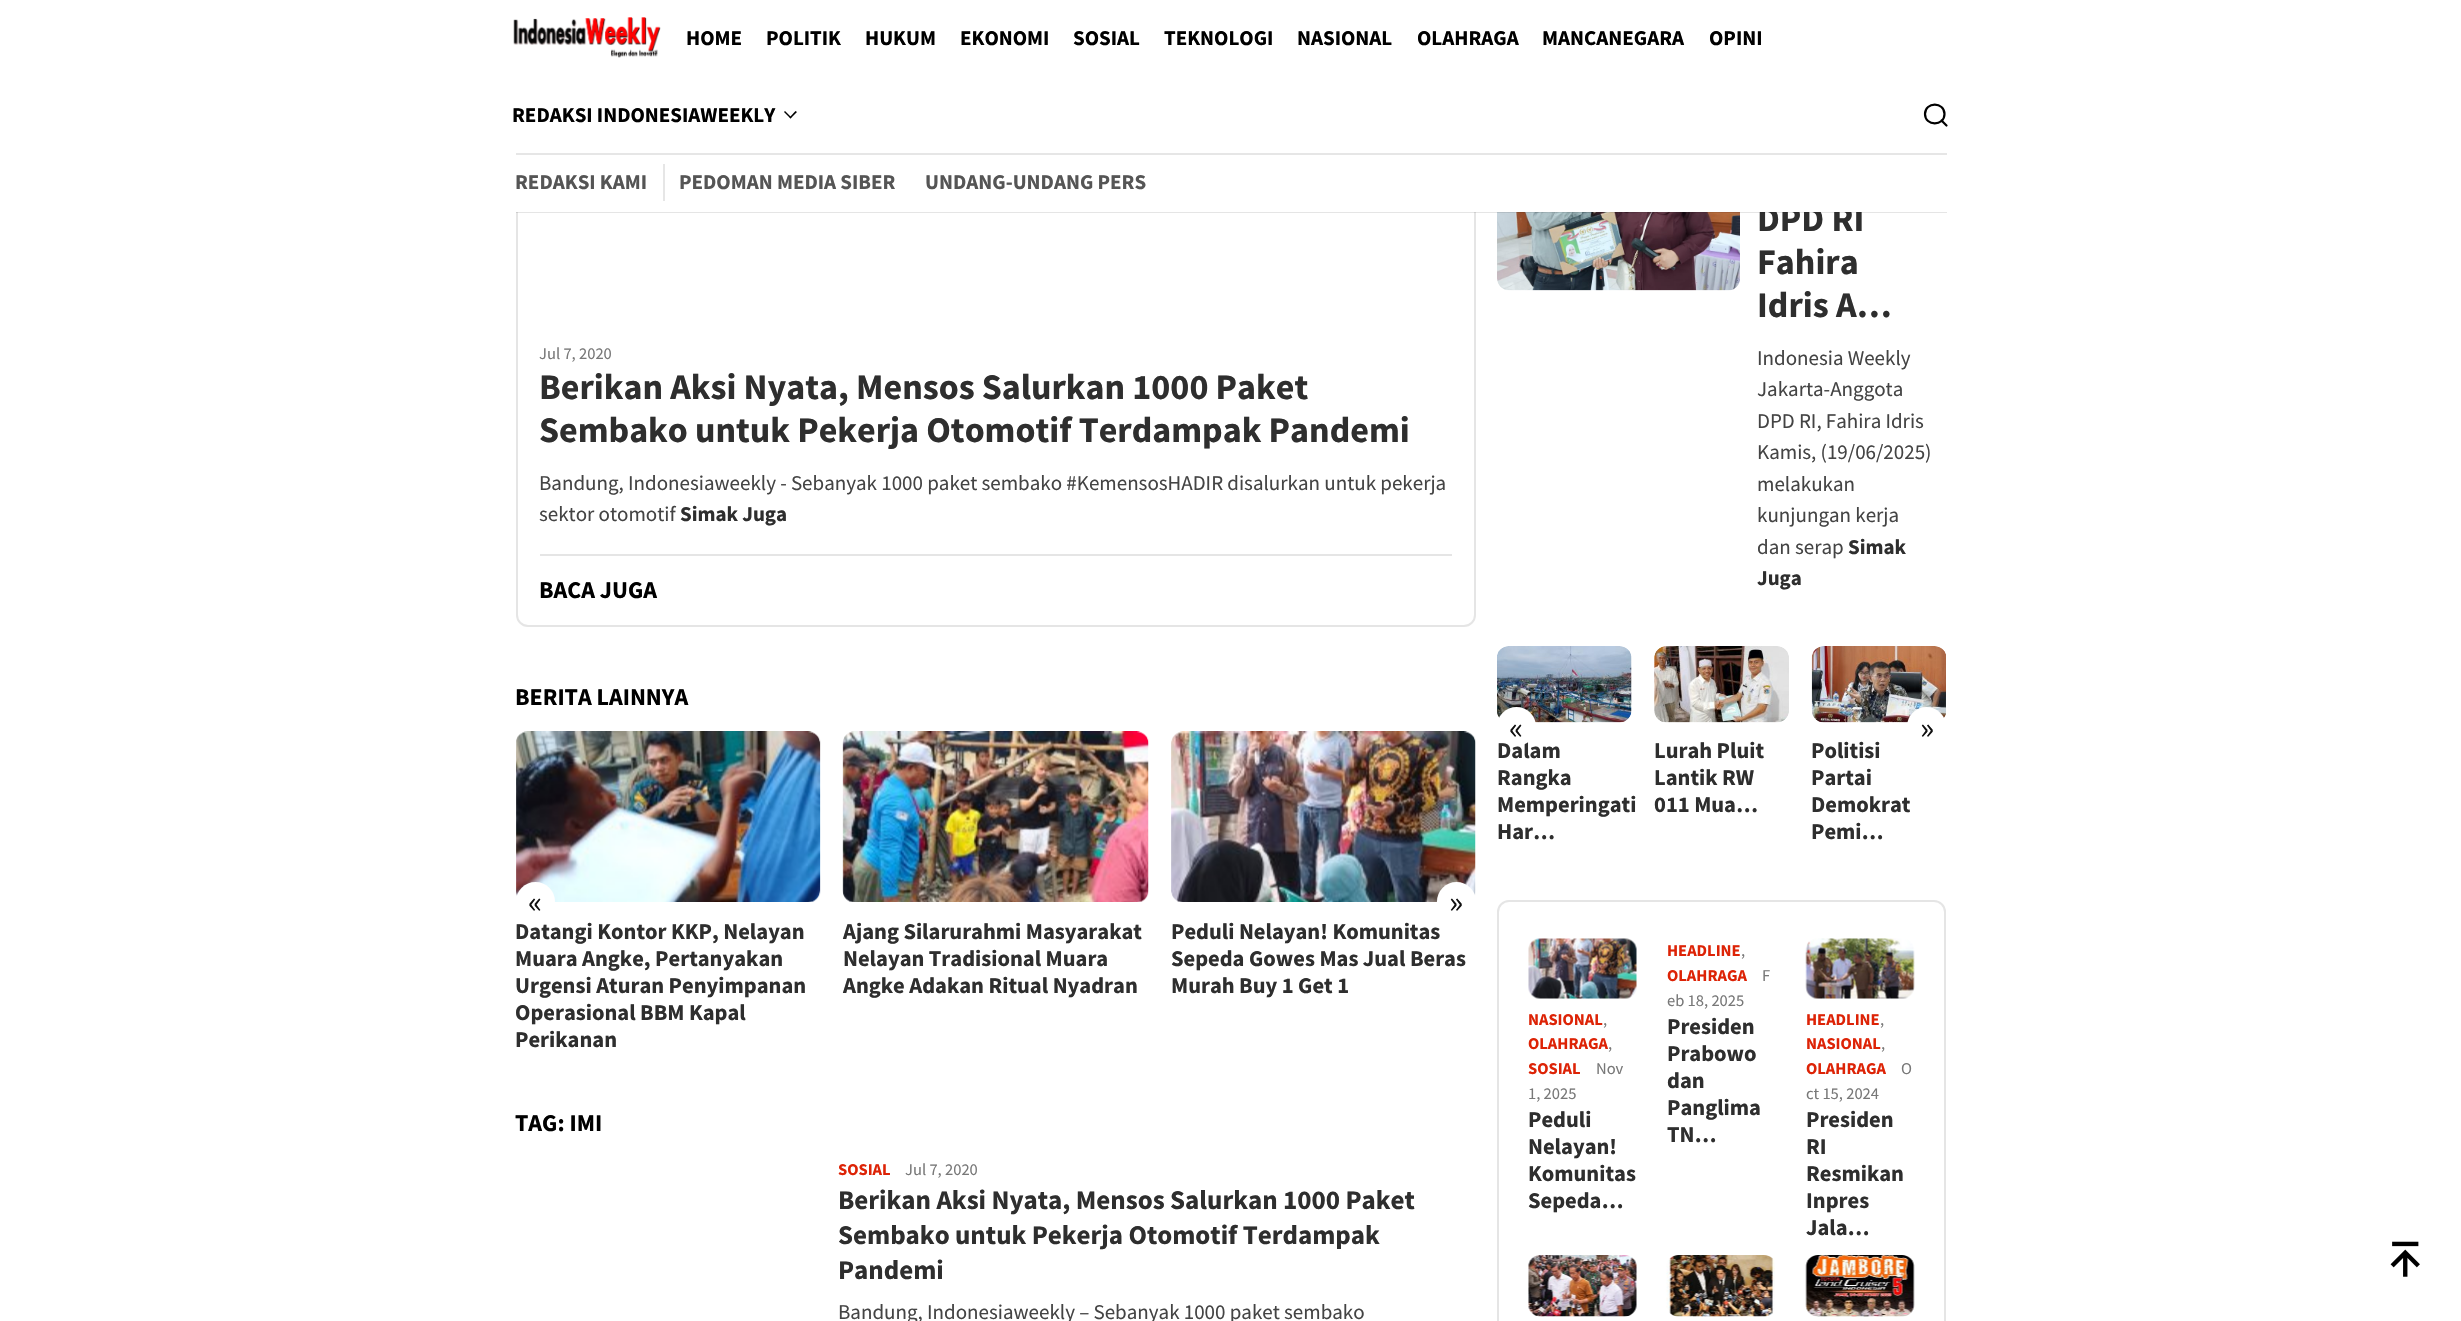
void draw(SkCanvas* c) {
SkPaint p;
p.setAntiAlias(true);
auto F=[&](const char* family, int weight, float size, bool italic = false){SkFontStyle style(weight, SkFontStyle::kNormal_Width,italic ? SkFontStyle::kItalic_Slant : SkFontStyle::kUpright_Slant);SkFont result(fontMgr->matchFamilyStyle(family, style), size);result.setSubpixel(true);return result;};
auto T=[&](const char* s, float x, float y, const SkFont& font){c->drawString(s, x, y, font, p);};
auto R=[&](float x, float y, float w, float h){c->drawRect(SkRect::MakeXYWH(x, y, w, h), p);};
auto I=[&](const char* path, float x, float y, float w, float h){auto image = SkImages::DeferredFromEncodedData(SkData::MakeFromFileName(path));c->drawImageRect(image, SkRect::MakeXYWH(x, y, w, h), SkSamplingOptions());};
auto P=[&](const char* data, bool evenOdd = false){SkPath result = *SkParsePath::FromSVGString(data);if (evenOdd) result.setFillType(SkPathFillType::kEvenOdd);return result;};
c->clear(0xffffffff);
p.setStroke(true);
p.setStrokeWidth(2);
p.setColor(0xffe5e5e5);
c->drawRoundRect(SkRect::MakeXYWH(517,-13,958,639),11,11,p);
auto f1 = F("Source Sans Pro",700,36);
p.setStroke(false);
p.setColor(0xff2e2e2e);
T("DPD RI",1757,231,f1);
p.setColor(0xffffffff);
R(516,0,1346,212);
p.setColor(0xffe6e6e6);
R(516,153,1431,2);
I("1.png",513,17,148,41);
auto f2 = F("Source Sans Pro",700,21);
p.setColor(0xff000000);
T("HOME",686,45,f2);
T("POLITIK",766,45,f2);
T("HUKUM",865,45,f2);
T("EKONOMI",960,45,f2);
T("SOSIAL",1073,45,f2);
T("TEKNOLOGI",1164,45,f2);
T("NASIONAL",1297,45,f2);
T("OLAHRAGA",1417,45,f2);
T("MANCANEGARA",1542,45,f2);
T("OPINI",1709,45,f2);
T("REDAKSI INDONESIAWEEKLY",512,122,f2);
c->drawPath(P("M795.5 111l1.5 1l-6.5 6.5l-1-1z"),p);
c->drawPath(P("M785 111l6.5 6.5l-1 1l-6.5-6.5z"),p);
p.setStroke(true);
p.setStrokeWidth(2.2);
p.setStrokeCap(SkPaint::kRound_Cap);
c->drawPath(P("M1946.5 125.5l-5-5m3-6.5c0 12.5-19.5 12.5-19.5 0c0-12.5 19.5-12.5 19.5 0z"),p);
I("5.png",1497,212,243,79);
p.setStroke(false);
p.setColor(0x1a000000);
R(516,212,1431,1);
p.setColor(0xffe6e6e6);
R(663,164,2,37);
p.setColor(0xff555555);
T("REDAKSI KAMI",515,189,f2);
T("PEDOMAN MEDIA SIBER",679,189,f2);
T("UNDANG-UNDANG PERS",925,189,f2);
p.setColor(0xffe5e5e5);
R(540,554,912,2);
auto f3 = F("Source Sans Pro",400,16.5);
p.setColor(0xff787878);
T("Jul 7, 2020",539,359,f3);
p.setColor(0xff2e2e2e);
T("Berikan Aksi Nyata, Mensos Salurkan 1000 Paket",539,399,f1);
T("Sembako untuk Pekerja Otomotif Terdampak Pandemi",539,442,f1);
auto f4 = F("Source Sans Pro",400,21);
p.setColor(0xff444444);
T("Bandung, Indonesiaweekly - Sebanyak 1000 paket sembako #KemensosHADIR disalurkan untuk pekerja",539,490,f4);
T("sektor otomotif",539,521,f4);
p.setColor(0xff2e2e2e);
T("Simak Juga",680,521,f2);
auto f5 = F("Source Sans Pro",700,24);
p.setColor(0xff000000);
T("BACA JUGA",539,598,f5);
T("BERITA LAINNYA",515,705,f5);
I("2.png",516,731,305,171);
p.setColor(0xffffffff);
c->drawCircle(535.5,901.5,19.5,p);
auto f6 = F("Source Sans Pro",400,33);
p.setColor(0xff111111);
T("«",528,913,f6);
I("4.png",1171,731,305,171);
p.setColor(0xffffffff);
c->drawCircle(1456.5,901.5,19.5,p);
p.setColor(0xff111111);
T("»",1449,913,f6);
auto f7 = F("Source Sans Pro",700,22.5);
p.setColor(0xff2e2e2e);
T("Datangi Kontor KKP, Nelayan",515,939,f7);
T("Muara Angke, Pertanyakan",515,966,f7);
T("Urgensi Aturan Penyimpanan",515,993,f7);
T("Operasional BBM Kapal",515,1020,f7);
T("Perikanan",515,1047,f7);
I("3.png",842,731,307,171);
T("Ajang Silarurahmi Masyarakat",843,939,f7);
T("Nelayan Tradisional Muara",843,966,f7);
T("Angke Adakan Ritual Nyadran",843,993,f7);
T("Peduli Nelayan! Komunitas",1171,939,f7);
T("Sepeda Gowes Mas Jual Beras",1171,966,f7);
T("Murah Buy 1 Get 1",1171,993,f7);
p.setColor(0xff000000);
T("TAG: IMI",515,1131,f5);
auto f8 = F("Source Sans Pro",700,16.5);
p.setColor(0xffdd2306);
T("SOSIAL",838,1175,f8);
p.setColor(0xff787878);
T("Jul 7, 2020",905,1175,f3);
auto f9 = F("Source Sans Pro",700,27);
p.setColor(0xff2e2e2e);
T("Berikan Aksi Nyata, Mensos Salurkan 1000 Paket",838,1209,f9);
T("Sembako untuk Pekerja Otomotif Terdampak",838,1244,f9);
T("Pandemi",838,1279,f9);
p.setColor(0xff444444);
T("Bandung, Indonesiaweekly – Sebanyak 1000 paket sembako",838,1319,f4);
p.setColor(0xff2e2e2e);
T("Fahira",1757,274,f1);
T("Idris A…",1757,317,f1);
p.setColor(0xff444444);
T("Indonesia Weekly",1757,365,f4);
T("Jakarta-Anggota",1757,396,f4);
T("DPD RI, Fahira Idris",1757,428,f4);
T("Kamis, (19/06/2025)",1757,459,f4);
T("melakukan",1757,491,f4);
T("kunjungan kerja",1757,522,f4);
T("dan serap",1757,554,f4);
p.setColor(0xff2e2e2e);
T("Simak",1848,554,f2);
T("Juga",1757,585,f2);
I("6.png",1497,646,135,77);
T("Dalam",1497,758,f7);
p.setColor(0xffffffff);
c->drawCircle(1516.5,726.5,19.5,p);
p.setColor(0xff111111);
T("«",1509,739,f6);
I("8.png",1811,646,135,77);
p.setColor(0xffffffff);
c->drawCircle(1926.5,726.5,19.5,p);
p.setColor(0xff111111);
T("»",1920,739,f6);
p.setColor(0xff2e2e2e);
T("Rangka",1497,785,f7);
T("Memperingati",1497,812,f7);
T("Har…",1497,839,f7);
I("7.png",1654,646,135,77);
T("Lurah Pluit",1654,758,f7);
T("Lantik RW",1654,785,f7);
T("011 Mua…",1654,812,f7);
T("Politisi",1811,758,f7);
T("Partai",1811,785,f7);
T("Demokrat",1811,812,f7);
T("Pemi…",1811,839,f7);
p.setStroke(true);
p.setStrokeWidth(2);
p.setStrokeCap(SkPaint::kButt_Cap);
p.setColor(0xffe5e5e5);
c->drawRoundRect(SkRect::MakeXYWH(1498,901,447,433),11,11,p);
I("9.png",1528,938,109,61);
p.setStroke(false);
p.setColor(0xffdd2306);
T("NASIONAL",1528,1025,f8);
p.setColor(0xff787878);
T(",",1603,1025,f3);
p.setColor(0xffdd2306);
T("OLAHRAGA",1528,1049,f8);
p.setColor(0xff787878);
T(",",1608,1049,f3);
p.setColor(0xffdd2306);
T("SOSIAL",1528,1074,f8);
p.setColor(0xff787878);
T("Nov",1596,1074,f3);
T("1, 2025",1528,1099,f3);
p.setColor(0xff2e2e2e);
T("Peduli",1528,1127,f7);
T("Nelayan!",1528,1154,f7);
T("Komunitas",1528,1181,f7);
T("Sepeda…",1528,1208,f7);
p.setColor(0xffdd2306);
T("HEADLINE",1667,956,f8);
p.setColor(0xff787878);
T(",",1741,956,f3);
p.setColor(0xffdd2306);
T("OLAHRAGA",1667,981,f8);
p.setColor(0xff787878);
T("F",1762,981,f3);
T("eb 18, 2025",1667,1006,f3);
p.setColor(0xff2e2e2e);
T("Presiden",1667,1034,f7);
T("Prabowo",1667,1061,f7);
T("dan",1667,1088,f7);
T("Panglima",1667,1115,f7);
T("TN…",1667,1142,f7);
I("10.png",1805,938,110,61);
p.setColor(0xffdd2306);
T("HEADLINE",1806,1025,f8);
p.setColor(0xff787878);
T(",",1880,1025,f3);
p.setColor(0xffdd2306);
T("NASIONAL",1806,1049,f8);
p.setColor(0xff787878);
T(",",1881,1049,f3);
p.setColor(0xffdd2306);
T("OLAHRAGA",1806,1074,f8);
p.setColor(0xff787878);
T("O",1901,1074,f3);
T("ct 15, 2024",1806,1099,f3);
p.setColor(0xff2e2e2e);
T("Presiden",1806,1127,f7);
T("RI",1806,1154,f7);
T("Resmikan",1806,1181,f7);
T("Inpres",1806,1208,f7);
T("Jala…",1806,1235,f7);
I("11.png",1528,1255,109,62);
I("12.png",1666,1255,109,62);
I("13.png",1805,1255,110,62);
I("14.png",2390,1241,30,36);
}
